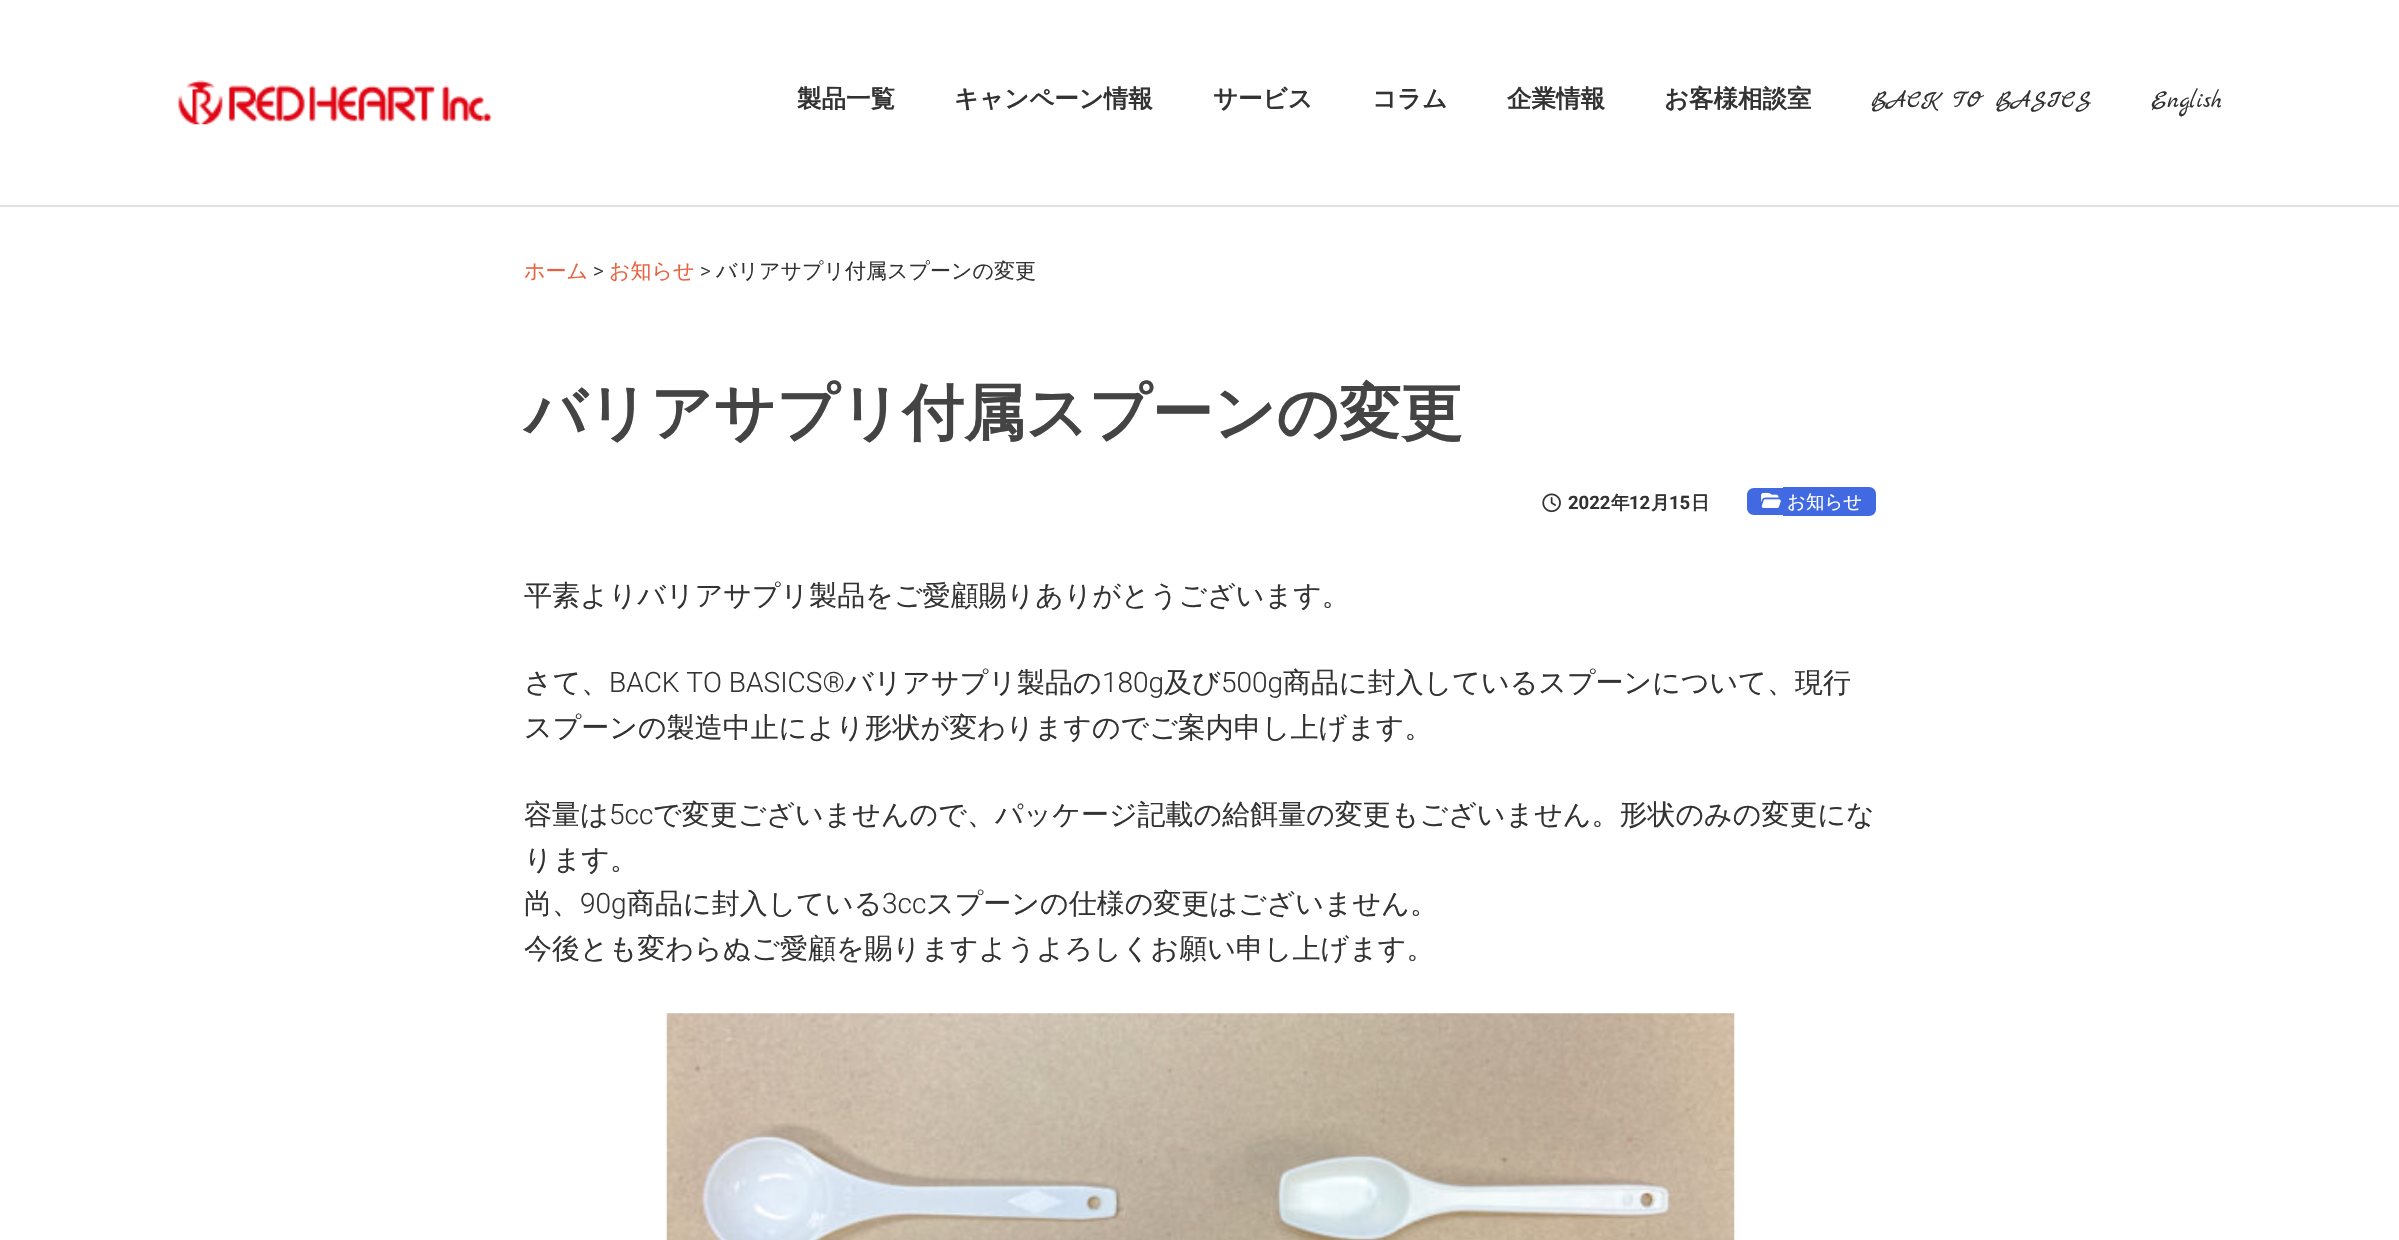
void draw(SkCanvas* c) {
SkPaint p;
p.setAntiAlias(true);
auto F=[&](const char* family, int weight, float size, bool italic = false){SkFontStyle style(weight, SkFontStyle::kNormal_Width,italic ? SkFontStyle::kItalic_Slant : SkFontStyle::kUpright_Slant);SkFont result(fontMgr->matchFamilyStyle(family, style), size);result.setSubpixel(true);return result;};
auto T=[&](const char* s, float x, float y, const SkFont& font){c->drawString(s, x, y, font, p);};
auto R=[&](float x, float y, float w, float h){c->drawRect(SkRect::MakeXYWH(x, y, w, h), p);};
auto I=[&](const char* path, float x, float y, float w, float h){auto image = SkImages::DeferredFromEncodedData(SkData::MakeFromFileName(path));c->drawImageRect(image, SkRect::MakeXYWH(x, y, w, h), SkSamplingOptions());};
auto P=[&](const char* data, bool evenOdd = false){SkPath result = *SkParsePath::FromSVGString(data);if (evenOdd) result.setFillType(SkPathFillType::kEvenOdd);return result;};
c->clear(0xffffffff);
p.setColor(0xffe0e0e0);
R(0,205,2399,2);
I("1.png",178,80,314,45);
auto f1 = F("WenQuanYi Zen Hei",700,24.5);
p.setColor(0xff333333);
T("製品一覧",797,107,f1);
T("キャンペーン情報",954,107,f1);
T("サービス",1213,107,f1);
T("コラム",1372,107,f1);
T("企業情報",1507,107,f1);
T("お客様相談室",1664,107,f1);
auto f2 = F("Marck Script",400,24.5);
T("BACK TO BASICS",1871,107,f2);
T("English",2151,107,f2);
auto f3 = F("WenQuanYi Zen Hei",500,21);
p.setColor(0xffe86240);
T("ホーム",524,278,f3);
auto f4 = F("Roboto",300,21);
p.setColor(0xff333333);
T(">",593,278,f4);
p.setColor(0xffe86240);
T("お知らせ",609,278,f3);
p.setColor(0xff333333);
T(">",700,278,f4);
T("バリアサプリ付属スプーンの変更",716,278,f3);
auto f5 = F("WenQuanYi Zen Hei",700,61.6);
p.setColor(0xff444444);
T("バリアサプリ付属スプーンの変更",524,434,f5);
I("2.png",1542,493,19,20);
auto f6 = F("Roboto",700,18.5);
p.setColor(0xff333333);
T("2022",1568,509,f6);
auto f7 = F("WenQuanYi Zen Hei",700,18.5);
T("年",1611,509,f7);
T("12",1629,509,f6);
T("月",1651,509,f7);
T("15",1669,509,f6);
T("日",1691,509,f7);
p.setColor(0xff4169e1);
c->drawPath(P("M1754 488h29v27h-29c-4 0-7-3-7-7v-13c0-4 3-7 7-7z"),p);
R(1783,487,4,29);
c->drawPath(P("M1787 487h82c4 0 7 3 7 7v15c0 4-3 7-7 7h-82z"),p);
I("3.png",1761,492,20,16);
auto f8 = F("WenQuanYi Zen Hei",500,18.5);
p.setColor(0xffffffff);
T("お知らせ",1787,508,f8);
auto f9 = F("WenQuanYi Zen Hei",500,28);
p.setColor(0xff333333);
T("平素よりバリアサプリ製品をご愛顧賜りありがとうございます。",524,605,f9);
T("さて、",524,692,f9);
auto f10 = F("Roboto",300,28);
T("BACK TO BASICS®",609,692,f10);
T("バリアサプリ製品の",845,692,f9);
T("180g",1102,692,f10);
T("及び",1164,692,f9);
T("500g",1221,692,f10);
T("商品に封入しているスプーンについて、現行",1283,692,f9);
T("スプーンの製造中止により形状が変わりますのでご案内申し上げます。",524,737,f9);
T("容量は",524,824,f9);
T("5cc",609,824,f10);
T("で変更ございませんので、パッケージ記載の給餌量の変更もございません。形状のみの変更にな",653,824,f9);
T("ります。",524,869,f9);
T("尚、",524,913,f9);
T("90g",580,913,f10);
T("商品に封入している",627,913,f9);
T("3cc",882,913,f10);
T("スプーンの仕様の変更はございません。",926,913,f9);
T("今後とも変わらぬご愛顧を賜りますようよろしくお願い申し上げます。",524,958,f9);
I("4.png",666,1013,1069,227);
}
